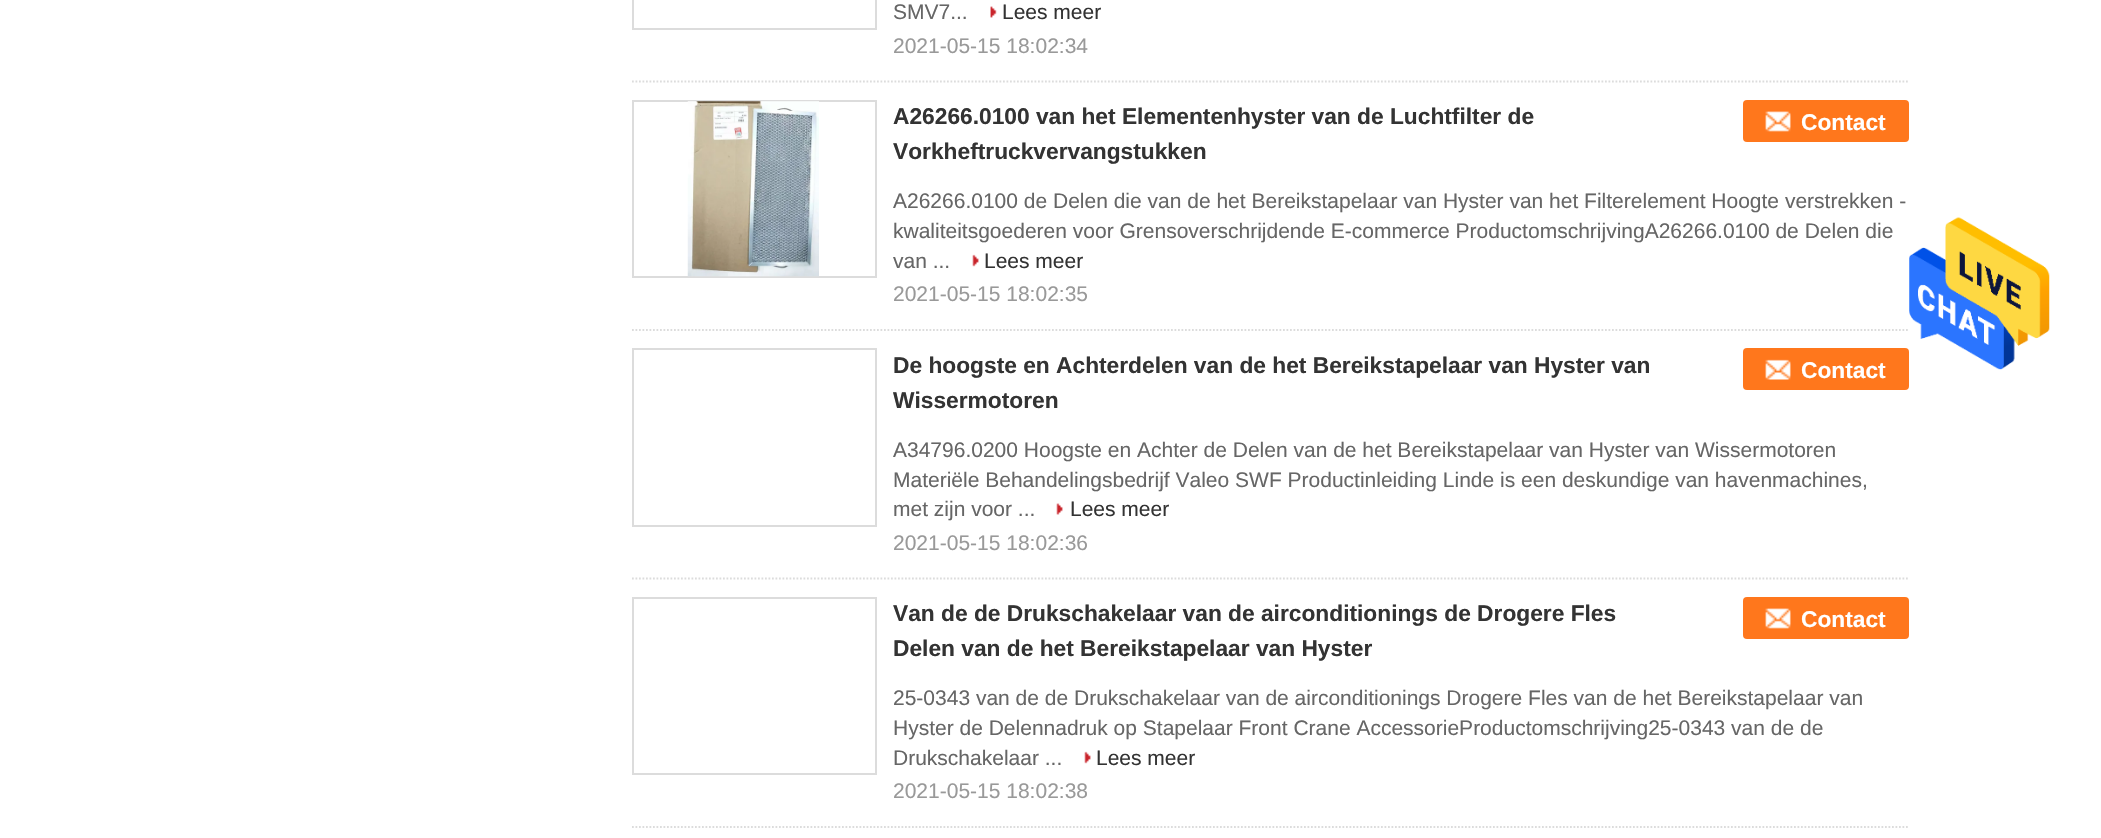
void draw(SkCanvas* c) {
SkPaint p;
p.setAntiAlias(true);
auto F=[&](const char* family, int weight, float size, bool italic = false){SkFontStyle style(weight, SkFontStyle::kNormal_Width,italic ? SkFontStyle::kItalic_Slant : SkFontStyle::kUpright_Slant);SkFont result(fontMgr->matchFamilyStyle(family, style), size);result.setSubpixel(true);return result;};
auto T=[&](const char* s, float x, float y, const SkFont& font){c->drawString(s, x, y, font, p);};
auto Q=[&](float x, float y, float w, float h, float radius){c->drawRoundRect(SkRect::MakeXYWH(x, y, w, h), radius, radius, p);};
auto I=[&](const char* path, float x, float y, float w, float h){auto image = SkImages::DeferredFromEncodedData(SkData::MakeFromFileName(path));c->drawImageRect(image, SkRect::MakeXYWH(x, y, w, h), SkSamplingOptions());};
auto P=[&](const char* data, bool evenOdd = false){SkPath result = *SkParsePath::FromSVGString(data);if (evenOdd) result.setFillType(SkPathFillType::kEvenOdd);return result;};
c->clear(0xffffffff);
p.setStroke(true);
p.setStrokeWidth(1.8);
p.setColor(0xffdcdcdc);
p.setPathEffect(SkDashPathEffect::Make({{1.75f,1.75f}}, 0));
c->drawPath(P("M632 81.5h1277"),p);
p.setPathEffect(nullptr);
p.setStrokeWidth(2);
c->drawRect(SkRect::MakeXYWH(633,-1,243,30),p);
auto f1 = F("Liberation Sans",400,21);
p.setStroke(false);
p.setColor(0xff666666);
T("SMV7...",893,19,f1);
I("1.png",990,6,7,12);
p.setColor(0xff333333);
T("Lees meer",1002,19,f1);
p.setColor(0xff999999);
T("2021-05-15 18:02:34",893,53,f1);
p.setStroke(true);
p.setStrokeWidth(1.8);
p.setColor(0xffdcdcdc);
p.setPathEffect(SkDashPathEffect::Make({{1.75f,1.75f}}, 0));
c->drawPath(P("M632 330h1277"),p);
p.setPathEffect(nullptr);
p.setStrokeWidth(2);
c->drawRect(SkRect::MakeXYWH(633,101,243,176),p);
I("2.png",687,101,132,176);
auto f2 = F("Liberation Sans",700,22.75);
p.setStroke(false);
p.setColor(0xff333333);
T("A26266.0100 van het Elementenhyster van de Luchtfilter de",893,124,f2);
p.setColor(0xffff771c);
Q(1743,100,166,42,4);
I("3.png",1765,111,26,21);
p.setColor(0xffffffff);
T("Contact",1801,130,f2);
p.setColor(0xff333333);
T("Vorkheftruckvervangstukken",893,159,f2);
p.setColor(0xff666666);
T("A26266.0100 de Delen die van de het Bereikstapelaar van Hyster van het Filterelement Hoogte verstrekken -",893,208,f1);
T("kwaliteitsgoederen voor Grensoverschrijdende E-commerce ProductomschrijvingA26266.0100 de Delen die",893,238,f1);
T("van ...",893,268,f1);
I("4.png",972,254,7,13);
p.setColor(0xff333333);
T("Lees meer",984,268,f1);
p.setColor(0xff999999);
T("2021-05-15 18:02:35",893,301,f1);
p.setStroke(true);
p.setStrokeWidth(1.8);
p.setColor(0xffdcdcdc);
p.setPathEffect(SkDashPathEffect::Make({{1.75f,1.75f}}, 0));
c->drawPath(P("M632 578.5h1277"),p);
p.setPathEffect(nullptr);
p.setStrokeWidth(2);
c->drawRect(SkRect::MakeXYWH(633,349,243,177),p);
p.setStroke(false);
p.setColor(0xff333333);
T("De hoogste en Achterdelen van de het Bereikstapelaar van Hyster van",893,373,f2);
p.setColor(0xffff771c);
Q(1743,348,166,42,4);
I("5.png",1765,359,26,21);
p.setColor(0xffffffff);
T("Contact",1801,378,f2);
p.setColor(0xff333333);
T("Wissermotoren",893,408,f2);
p.setColor(0xff666666);
T("A34796.0200 Hoogste en Achter de Delen van de het Bereikstapelaar van Hyster van Wissermotoren",893,457,f1);
T("Materiële Behandelingsbedrijf Valeo SWF Productinleiding Linde is een deskundige van havenmachines,",893,487,f1);
T("met zijn voor ...",893,516,f1);
I("6.png",1056,503,7,12);
p.setColor(0xff333333);
T("Lees meer",1070,516,f1);
p.setColor(0xff999999);
T("2021-05-15 18:02:36",893,550,f1);
p.setStroke(true);
p.setStrokeWidth(1.8);
p.setColor(0xffdcdcdc);
p.setPathEffect(SkDashPathEffect::Make({{1.75f,1.75f}}, 0));
c->drawPath(P("M632 827h1277"),p);
p.setPathEffect(nullptr);
p.setStrokeWidth(2);
c->drawRect(SkRect::MakeXYWH(633,598,243,176),p);
p.setStroke(false);
p.setColor(0xff333333);
T("Van de de Drukschakelaar van de airconditionings de Drogere Fles",893,621,f2);
p.setColor(0xffff771c);
Q(1743,597,166,42,4);
I("3.png",1765,608,26,21);
p.setColor(0xffffffff);
T("Contact",1801,627,f2);
p.setColor(0xff333333);
T("Delen van de het Bereikstapelaar van Hyster",893,656,f2);
p.setColor(0xff666666);
T("25-0343 van de de Drukschakelaar van de airconditionings Drogere Fles van de het Bereikstapelaar van",893,705,f1);
T("Hyster de Delennadruk op Stapelaar Front Crane AccessorieProductomschrijving25-0343 van de de",893,735,f1);
T("Drukschakelaar ...",893,765,f1);
I("4.png",1084,751,7,13);
p.setColor(0xff333333);
T("Lees meer",1096,765,f1);
p.setColor(0xff999999);
T("2021-05-15 18:02:38",893,798,f1);
I("7.png",1909,217,141,153);
}
